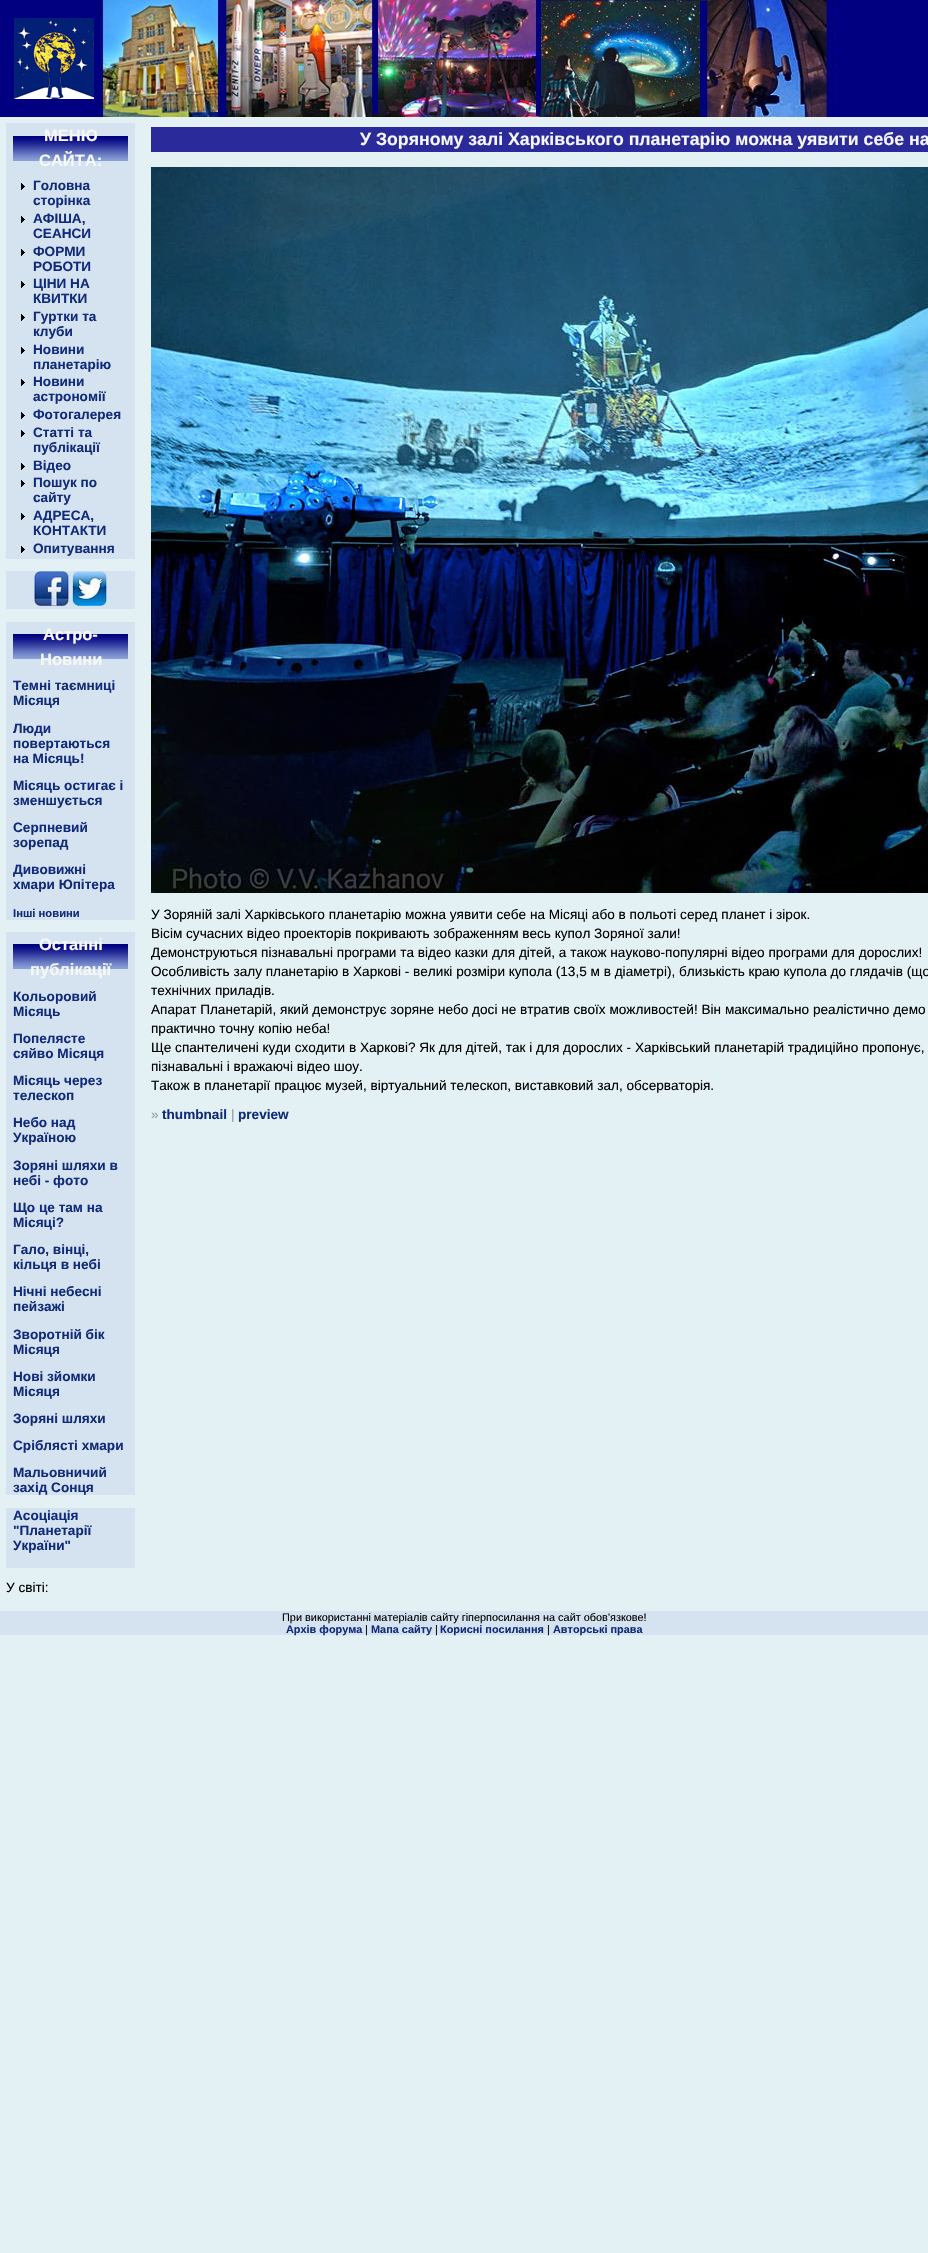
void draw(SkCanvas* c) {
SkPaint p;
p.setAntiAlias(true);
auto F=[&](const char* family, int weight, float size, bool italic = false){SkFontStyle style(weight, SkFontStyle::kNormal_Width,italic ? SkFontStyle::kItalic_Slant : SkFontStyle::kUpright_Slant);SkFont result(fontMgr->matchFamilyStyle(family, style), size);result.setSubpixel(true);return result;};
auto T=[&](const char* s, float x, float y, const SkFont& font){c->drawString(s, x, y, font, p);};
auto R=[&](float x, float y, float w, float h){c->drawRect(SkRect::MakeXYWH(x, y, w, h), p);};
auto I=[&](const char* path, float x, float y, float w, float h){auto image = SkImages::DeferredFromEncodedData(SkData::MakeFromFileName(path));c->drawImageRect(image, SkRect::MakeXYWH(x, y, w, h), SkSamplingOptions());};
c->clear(0xffe4f1f4);
p.setColor(0xff000080);
R(0,0,928,117);
I("1.png",88,0,752,117);
I("2.png",14,18,80,81);
p.setColor(0xffd5e2f0);
R(6,123,129,436);
I("3.png",13,136,115,25);
auto f1 = F("Liberation Sans",700,16.5);
p.setColor(0xfff7f7f7);
T("МЕНЮ",44,141,f1);
T("САЙТА:",39,166,f1);
I("4.png",21,183,4,7);
auto f2 = F("Liberation Sans",700,13.6);
p.setColor(0xff102b7a);
T("Головна",33,190,f2);
T("сторінка",33,205,f2);
I("4.png",21,216,4,7);
T("АФІША,",33,223,f2);
T("СЕАНСИ",33,238,f2);
I("4.png",21,249,4,7);
T("ФОРМИ",33,256,f2);
T("РОБОТИ",33,271,f2);
I("4.png",21,281,4,7);
T("ЦІНИ НА",33,288,f2);
T("КВИТКИ",33,303,f2);
I("4.png",21,314,4,7);
T("Гуртки та",33,321,f2);
T("клуби",33,336,f2);
I("4.png",21,347,4,7);
T("Новини",33,354,f2);
T("планетарію",33,369,f2);
I("4.png",21,379,4,7);
T("Новини",33,386,f2);
T("астрономії",33,401,f2);
I("4.png",21,412,4,7);
T("Фотогалерея",33,419,f2);
I("4.png",21,430,4,7);
T("Статті та",33,437,f2);
T("публікації",33,452,f2);
I("4.png",21,463,4,7);
T("Відео",33,470,f2);
I("4.png",21,480,4,7);
T("Пошук по",33,487,f2);
T("сайту",33,502,f2);
I("4.png",21,513,4,7);
T("АДРЕСА,",33,520,f2);
T("КОНТАКТИ",33,535,f2);
I("4.png",21,546,4,7);
T("Опитування",33,553,f2);
p.setColor(0xffd5e2f0);
R(6,571,129,38);
I("5.png",34,571,35,35);
I("6.png",72,571,35,35);
R(6,622,129,298);
I("3.png",13,634,115,25);
p.setColor(0xfff7f7f7);
T("Астро-",43,640,f1);
T("Новини",40,665,f1);
p.setColor(0xff102b7a);
T("Темні таємниці",13,690,f2);
T("Місяця",13,705,f2);
T("Люди",13,733,f2);
T("повертаються",13,748,f2);
T("на Місяць!",13,763,f2);
T("Місяць остигає і",13,790,f2);
T("зменшується",13,805,f2);
T("Серпневий",13,832,f2);
T("зорепад",13,847,f2);
T("Дивовижні",13,874,f2);
T("хмари Юпітера",13,889,f2);
auto f3 = F("Liberation Sans",700,11.25);
T("Інші новини",13,917,f3);
p.setColor(0xffd5e2f0);
R(6,932,129,563);
I("3.png",13,944,115,25);
p.setColor(0xfff7f7f7);
T("Останні",39,950,f1);
T("публікації",30,975,f1);
p.setColor(0xff102b7a);
T("Кольоровий",13,1001,f2);
T("Місяць",13,1016,f2);
T("Попелясте",13,1043,f2);
T("сяйво Місяця",13,1058,f2);
T("Місяць через",13,1085,f2);
T("телескоп",13,1100,f2);
T("Небо над",13,1127,f2);
T("Україною",13,1142,f2);
T("Зоряні шляхи в",13,1170,f2);
T("небі - фото",13,1185,f2);
T("Що це там на",13,1212,f2);
T("Місяці?",13,1227,f2);
T("Гало, вінці,",13,1254,f2);
T("кільця в небі",13,1269,f2);
T("Нічні небесні",13,1296,f2);
T("пейзажі",13,1311,f2);
T("Зворотній бік",13,1339,f2);
T("Місяця",13,1354,f2);
T("Нові зйомки",13,1381,f2);
T("Місяця",13,1396,f2);
T("Зоряні шляхи",13,1423,f2);
T("Сріблясті хмари",13,1450,f2);
T("Мальовничий",13,1477,f2);
T("захід Сонця",13,1492,f2);
p.setColor(0xffd5e2f0);
R(6,1508,129,60);
p.setColor(0xff102b7a);
T("Асоціація",13,1520,f2);
T("\"Планетарії",13,1535,f2);
T("України\"",13,1550,f2);
auto f4 = F("Liberation Sans",400,13.6);
p.setColor(0xff000000);
T("У світі:",6,1592,f4);
p.setColor(0xff2a2a9a);
R(151,127,777,25);
auto f5 = F("Liberation Sans",700,17.7);
p.setColor(0xfff7f7f7);
T("У Зоряному залі Харківського планетарію можна уявити себе на",360,145,f5);
I("7.png",151,167,777,726);
p.setColor(0xff000000);
T("У Зоряній залі Харківського планетарію можна уявити себе на Місяці або в польоті серед планет і зірок.",151,919,f4);
T("Вісім сучасних відео проекторів покривають зображенням весь купол Зоряної зали!",151,938,f4);
T("Демонструються пізнавальні програми та відео казки для дітей, а також науково-популярні відео програми для дорослих!",151,957,f4);
T("Особливість залу планетарію в Харкові - великі розміри купола (13,5 м в діаметрі), близькість краю купола до глядачів (що",151,976,f4);
T("технічних приладів.",151,995,f4);
T("Апарат Планетарій, який демонструє зоряне небо досі не втратив своїх можливостей! Він максимально реалістично демо",151,1014,f4);
T("практично точну копію неба!",151,1033,f4);
T("Ще спантеличені куди сходити в Харкові? Як для дітей, так і для дорослих - Харківський планетарій традиційно пропонує,",151,1052,f4);
T("пізнавальні і вражаючі відео шоу.",151,1071,f4);
T("Також в планетарії працює музей, віртуальний телескоп, виставковий зал, обсерваторія.",151,1090,f4);
p.setColor(0xff999999);
T("»",151,1119,f4);
p.setColor(0xff102b7a);
T("thumbnail",162,1119,f2);
p.setColor(0xff999999);
T("|",231,1119,f4);
p.setColor(0xff102b7a);
T("preview",238,1119,f2);
p.setColor(0xffd5e2f0);
R(0,1611,928,24);
auto f6 = F("Liberation Sans",400,10.9);
p.setColor(0xff000000);
T("При використанні матеріалів сайту гіперпосилання на сайт обов'язкове!",282,1621,f6);
auto f7 = F("Liberation Sans",700,10.9);
p.setColor(0xff102b7a);
T("Архів форума",286,1633,f7);
p.setColor(0xff000000);
T("|",365,1633,f6);
p.setColor(0xff102b7a);
T("Мапа сайту",371,1633,f7);
p.setColor(0xff000000);
T("|",435,1633,f6);
p.setColor(0xff102b7a);
T("Корисні посилання",440,1633,f7);
p.setColor(0xff000000);
T("|",547,1633,f6);
p.setColor(0xff102b7a);
T("Авторські права",553,1633,f7);
}
